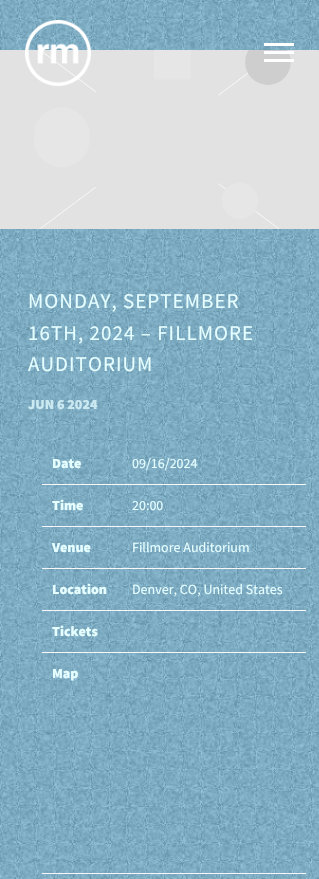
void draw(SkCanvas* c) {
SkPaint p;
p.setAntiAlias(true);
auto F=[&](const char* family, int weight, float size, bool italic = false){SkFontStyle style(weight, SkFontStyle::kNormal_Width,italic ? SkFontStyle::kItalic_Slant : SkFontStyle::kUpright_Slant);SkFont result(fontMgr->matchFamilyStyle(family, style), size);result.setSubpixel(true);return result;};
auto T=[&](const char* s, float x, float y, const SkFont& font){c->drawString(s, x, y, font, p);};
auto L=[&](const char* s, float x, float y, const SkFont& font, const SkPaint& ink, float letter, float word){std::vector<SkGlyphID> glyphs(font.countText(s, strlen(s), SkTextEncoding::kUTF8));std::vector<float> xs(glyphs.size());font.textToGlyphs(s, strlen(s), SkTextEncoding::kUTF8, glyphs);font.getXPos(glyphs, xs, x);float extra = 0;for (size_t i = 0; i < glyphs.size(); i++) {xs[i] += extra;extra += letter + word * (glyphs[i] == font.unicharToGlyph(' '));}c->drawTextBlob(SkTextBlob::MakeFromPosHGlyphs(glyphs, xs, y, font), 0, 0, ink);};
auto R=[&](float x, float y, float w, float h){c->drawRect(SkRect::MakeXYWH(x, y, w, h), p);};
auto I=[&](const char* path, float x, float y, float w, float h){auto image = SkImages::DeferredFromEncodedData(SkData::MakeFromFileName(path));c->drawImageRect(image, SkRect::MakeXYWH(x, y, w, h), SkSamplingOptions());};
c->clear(0xffffffff);
I("2.png",0,0,319,879);
I("3.png",0,50,319,179);
I("1.png",25,20,66,66);
p.setColor(0xffffffff);
R(264,43,30,3);
R(264,51,30,3);
R(264,59,30,3);
auto f1 = F("Source Sans Pro",400,21);
p.setColor(0xffe5feff);
L("MONDAY, SEPTEMBER",28,308,f1,p,1.05,0);
L("16TH, 2024 – FILLMORE",28,340,f1,p,1.05,0);
L("AUDITORIUM",28,371,f1,p,1.05,0);
auto f2 = F("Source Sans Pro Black",900,14);
p.setColor(0xffcbe9f0);
T("JUN 6 2024",28,409,f2);
p.setColor(0xffe5feff);
T("Date",52,468,f2);
p.setColor(0xfff7f7f7);
R(42,484,264,1);
auto f3 = F("Source Sans Pro",400,14);
p.setColor(0xffe5feff);
T("09/16/2024",132,468,f3);
T("Time",52,510,f2);
p.setColor(0xfff7f7f7);
R(42,526,264,1);
p.setColor(0xffe5feff);
T("20:00",132,510,f3);
T("Venue",52,552,f2);
p.setColor(0xfff7f7f7);
R(42,568,264,1);
p.setColor(0xffe5feff);
T("Fillmore Auditorium",132,552,f3);
T("Location",52,594,f2);
p.setColor(0xfff7f7f7);
R(42,610,264,1);
p.setColor(0xffe5feff);
T("Denver, CO, United States",132,594,f3);
T("Tickets",52,636,f2);
p.setColor(0xfff7f7f7);
R(42,652,264,1);
p.setColor(0xffe5feff);
T("Map",52,678,f2);
p.setColor(0xfff7f7f7);
R(42,873,264,1);
}
